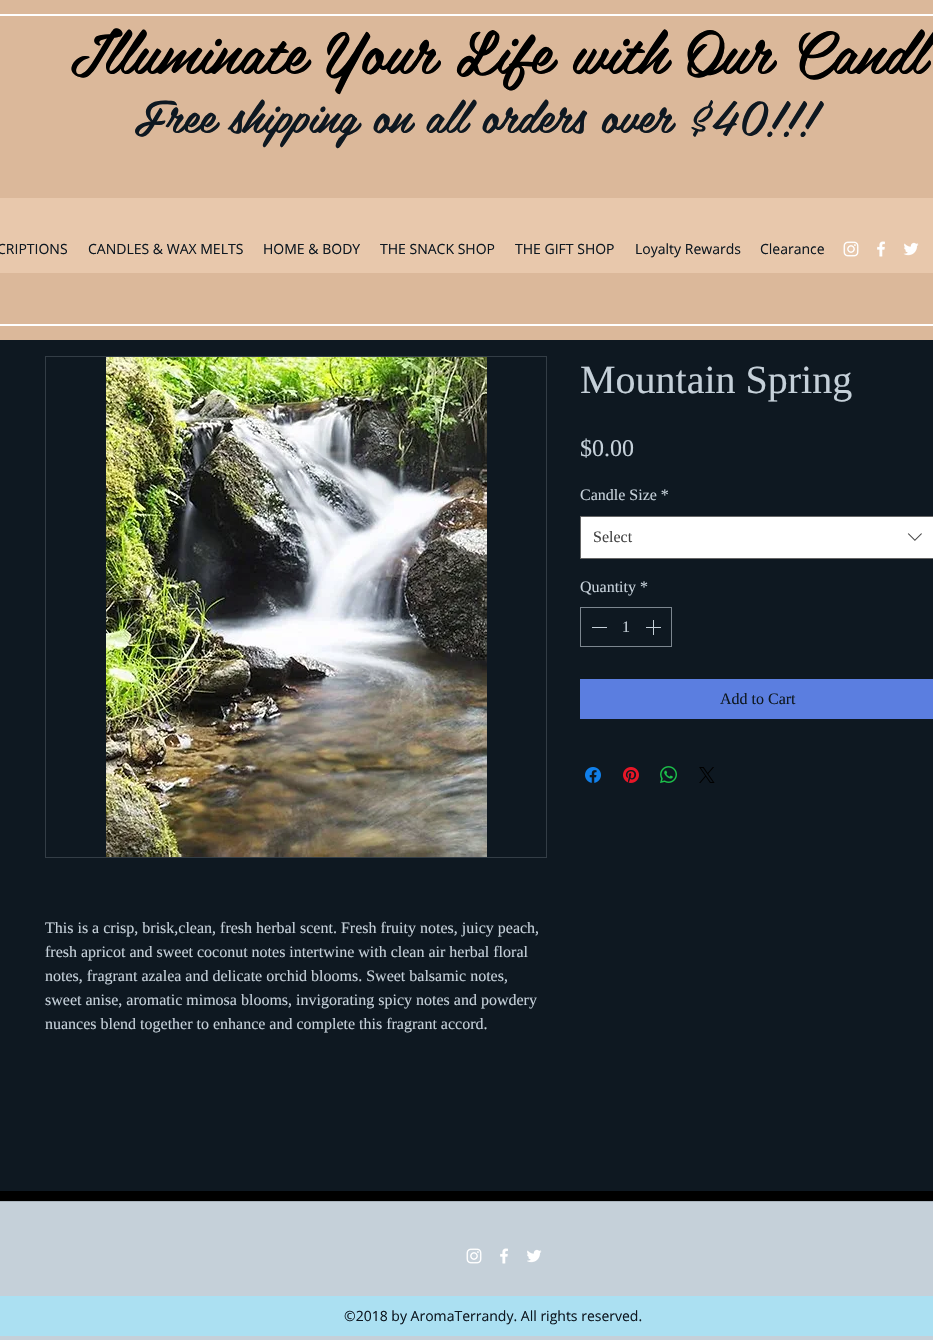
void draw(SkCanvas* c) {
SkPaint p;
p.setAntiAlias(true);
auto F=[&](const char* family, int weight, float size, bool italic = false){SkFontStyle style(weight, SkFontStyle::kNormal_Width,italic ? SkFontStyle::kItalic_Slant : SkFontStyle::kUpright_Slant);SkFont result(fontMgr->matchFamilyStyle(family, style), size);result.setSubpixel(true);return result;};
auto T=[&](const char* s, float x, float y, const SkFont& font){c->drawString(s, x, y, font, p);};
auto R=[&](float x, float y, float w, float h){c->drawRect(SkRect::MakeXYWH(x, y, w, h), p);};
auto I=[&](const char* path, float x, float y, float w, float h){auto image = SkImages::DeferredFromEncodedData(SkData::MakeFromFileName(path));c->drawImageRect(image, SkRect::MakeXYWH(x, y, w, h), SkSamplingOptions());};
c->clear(0xff000000);
p.setColor(0xffdbb89a);
R(0,0,933,340);
p.setColor(0xffffffff);
R(0,14,933,2);
R(0,324,933,2);
auto f1 = F("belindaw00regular",400,60);
p.setColor(0xff000000);
T("Illuminate Your Life with Our Candl",70,74,f1);
auto f2 = F("belindaw00regular",400,45);
p.setColor(0xff0e1821);
T("Free shipping on all orders over $40!!!",134,133,f2);
p.setColor(0xffe8c8ac);
R(0,198,933,75);
auto f3 = F("Open Sans",400,14);
p.setColor(0xff0e1821);
T("CRIPTIONS",-3,254,f3);
T("CANDLES & WAX MELTS",88,254,f3);
T("HOME & BODY",263,254,f3);
T("THE SNACK SHOP",380,254,f3);
T("THE GIFT SHOP",515,254,f3);
T("Loyalty Rewards",635,254,f3);
T("Clearance",760,254,f3);
I("1.png",843,241,16,16);
I("2.png",877,241,8,16);
I("3.png",903,242,16,14);
R(0,340,933,851);
auto f4 = F("Liberation Serif",400,40);
p.setColor(0xffc5d0d9);
T("Mountain Spring",580,393,f4);
auto f5 = F("Liberation Serif",400,24);
T("$0.00",580,456,f5);
auto f6 = F("Liberation Serif",400,16);
T("Candle Size *",580,500,f6);
p.setColor(0xffffffff);
c->drawRect(SkRect::MakeXYWH(580.5,516.5,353,42),p);
p.setStroke(true);
p.setStrokeWidth(1);
p.setColor(0xff666666);
c->drawRect(SkRect::MakeXYWH(580.5,516.5,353,42),p);
p.setStroke(false);
p.setColor(0xff444444);
T("Select",593,542,f6);
I("4.png",907,533,15,8);
p.setColor(0xffc5d0d9);
T("Quantity *",580,592,f6);
p.setStroke(true);
p.setColor(0xff7c868f);
c->drawRect(SkRect::MakeXYWH(580.5,607.5,91,39),p);
p.setStroke(false);
p.setColor(0xffc5d0d9);
R(592,627,15,1);
T("1",622,632,f6);
I("5.png",646,620,15,15);
p.setColor(0xff5b7ee0);
R(580,679,353,40);
p.setColor(0xff0e1821);
T("Add to Cart",720,704,f6);
I("6.png",585,767,16,16);
I("7.png",623,767,16,16);
I("8.png",660,766,17,17);
I("9.png",699,767,16,16);
p.setStroke(true);
p.setColor(0xff333d46);
c->drawRect(SkRect::MakeXYWH(45.5,356.5,501,501),p);
I("10.png",106,357,381,500);
p.setStroke(false);
p.setColor(0xffc5d0d9);
T("This is a crisp, brisk,clean, fresh herbal scent. Fresh fruity notes, juicy peach,",45,933,f6);
T("fresh apricot and sweet coconut notes intertwine with clean air herbal floral",45,957,f6);
T("notes, fragrant azalea and delicate orchid blooms. Sweet balsamic notes,",45,981,f6);
T("sweet anise, aromatic mimosa blooms, invigorating spicy notes and powdery",45,1005,f6);
T("nuances blend together to enhance and complete this fragrant accord.",45,1029,f6);
R(0,1202,933,138);
p.setColor(0xffaab4bd);
R(0,1201,933,1);
I("11.png",466,1248,16,16);
I("12.png",500,1248,8,16);
I("13.png",527,1249,15,14);
p.setColor(0xffabe0f2);
R(0,1296,933,40);
p.setColor(0xff0e1821);
T("©2018 by AromaTerrandy. All rights reserved.",344,1321,f3);
}
